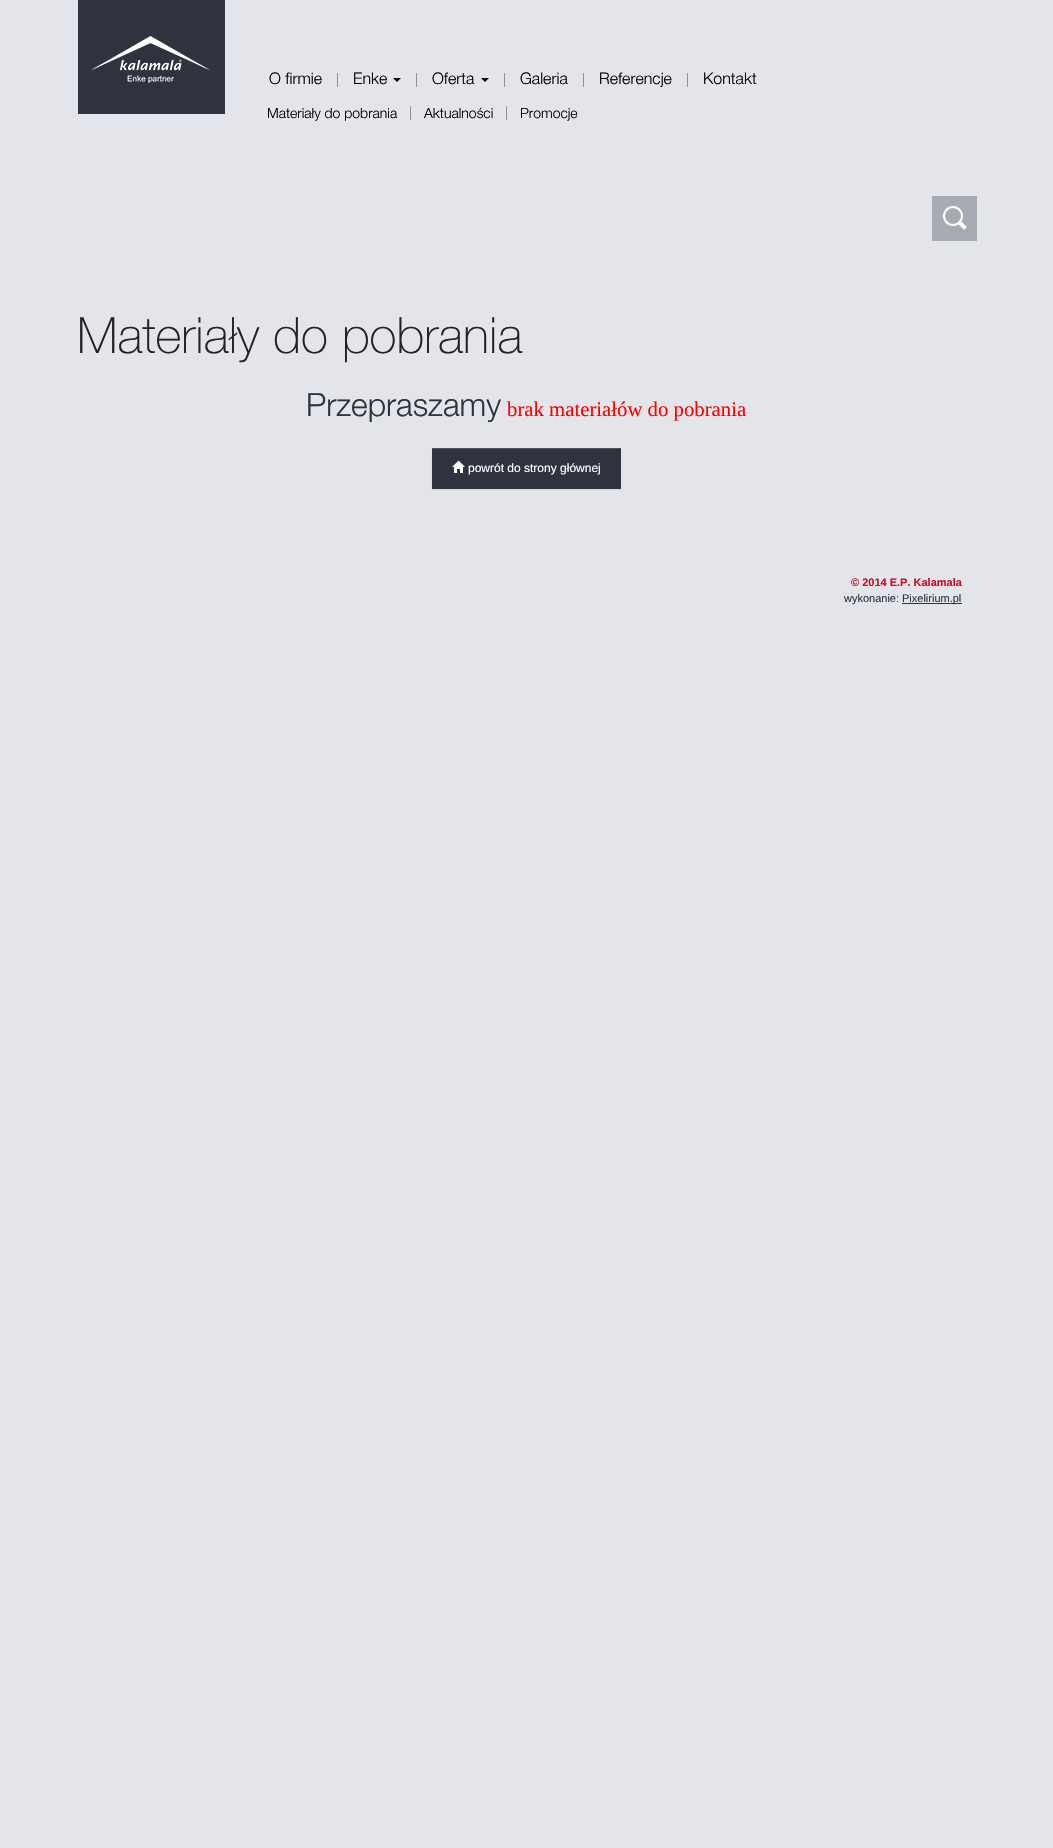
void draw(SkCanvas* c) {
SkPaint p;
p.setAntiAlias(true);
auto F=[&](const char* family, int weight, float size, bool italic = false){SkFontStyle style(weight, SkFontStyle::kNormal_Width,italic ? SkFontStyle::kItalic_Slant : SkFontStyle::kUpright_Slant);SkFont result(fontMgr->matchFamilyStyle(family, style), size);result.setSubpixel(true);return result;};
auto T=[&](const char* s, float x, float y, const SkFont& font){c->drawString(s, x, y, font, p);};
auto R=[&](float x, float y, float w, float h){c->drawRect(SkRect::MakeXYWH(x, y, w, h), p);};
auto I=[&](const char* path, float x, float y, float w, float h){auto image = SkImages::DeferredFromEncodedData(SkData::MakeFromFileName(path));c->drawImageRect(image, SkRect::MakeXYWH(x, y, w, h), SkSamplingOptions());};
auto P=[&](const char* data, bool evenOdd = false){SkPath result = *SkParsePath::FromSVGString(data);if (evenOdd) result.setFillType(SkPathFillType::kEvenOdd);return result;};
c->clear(0xffe4e5ea);
p.setColor(0xff2e333e);
R(78,0,147,114);
I("1.png",91,36,119,47);
auto f1 = F("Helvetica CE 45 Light",300,16);
p.setColor(0xff000000);
T("O firmie",269,84,f1);
p.setColor(0xff929296);
R(337,73,1,14);
p.setColor(0xff000000);
T("Enke",353,84,f1);
c->drawPath(P("M393 78h8l-4 4z"),p);
p.setColor(0xff929296);
R(416,73,1,14);
p.setColor(0xff000000);
T("Oferta",432,84,f1);
c->drawPath(P("M481 78h8l-4 4z"),p);
p.setColor(0xff929296);
R(504,73,1,14);
p.setColor(0xff000000);
T("Galeria",520,84,f1);
p.setColor(0xff929296);
R(583,73,1,14);
p.setColor(0xff000000);
T("Referencje",599,84,f1);
p.setColor(0xff929296);
R(687,73,1,14);
p.setColor(0xff000000);
T("Kontakt",703,84,f1);
auto f2 = F("Helvetica CE 45 Light",300,14);
T("Materiały do pobrania",267,118,f2);
p.setColor(0xff929296);
R(410,106,1,14);
p.setColor(0xff000000);
T("Aktualności",424,118,f2);
p.setColor(0xff929296);
R(506,106,1,14);
p.setColor(0xff000000);
T("Promocje",520,118,f2);
p.setColor(0xffa8aab1);
R(932,196,45,45);
I("2.png",943,206,24,24);
auto f3 = F("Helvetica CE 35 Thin",100,50);
p.setColor(0xff22232a);
T("Materiały do pobrania",77,353,f3);
auto f4 = F("Helvetica CE 45 Light",300,32);
p.setColor(0xff2e333e);
T("Przepraszamy",306,416,f4);
auto f5 = F("Liberation Serif",400,20.75);
p.setColor(0xffff0000);
T("brak materiałów do pobrania",507,416,f5);
p.setColor(0x12000000);
p.setMaskFilter(SkMaskFilter::MakeBlur(kNormal_SkBlurStyle, .5));
c->drawRect(SkRect::MakeXYWH(432,449,189,41),p);
p.setMaskFilter(nullptr);
p.setColor(0xff2e333e);
R(432,449,189,40);
p.setColor(0xff4d525b);
R(432,448,189,1);
I("3.png",452,460,13,13);
auto f6 = F("Liberation Sans",400,12);
p.setColor(0xffffffff);
T("powrót do strony głównej",468,472,f6);
auto f7 = F("Liberation Sans",700,11);
p.setColor(0xffc50f24);
T("© 2014 E.P. Kalamala",851,586,f7);
auto f8 = F("Liberation Sans",400,11);
p.setColor(0xff2e333e);
T("wykonanie:",844,602,f8);
R(902,603,60,1);
T("Pixelirium.pl",902,602,f8);
}
